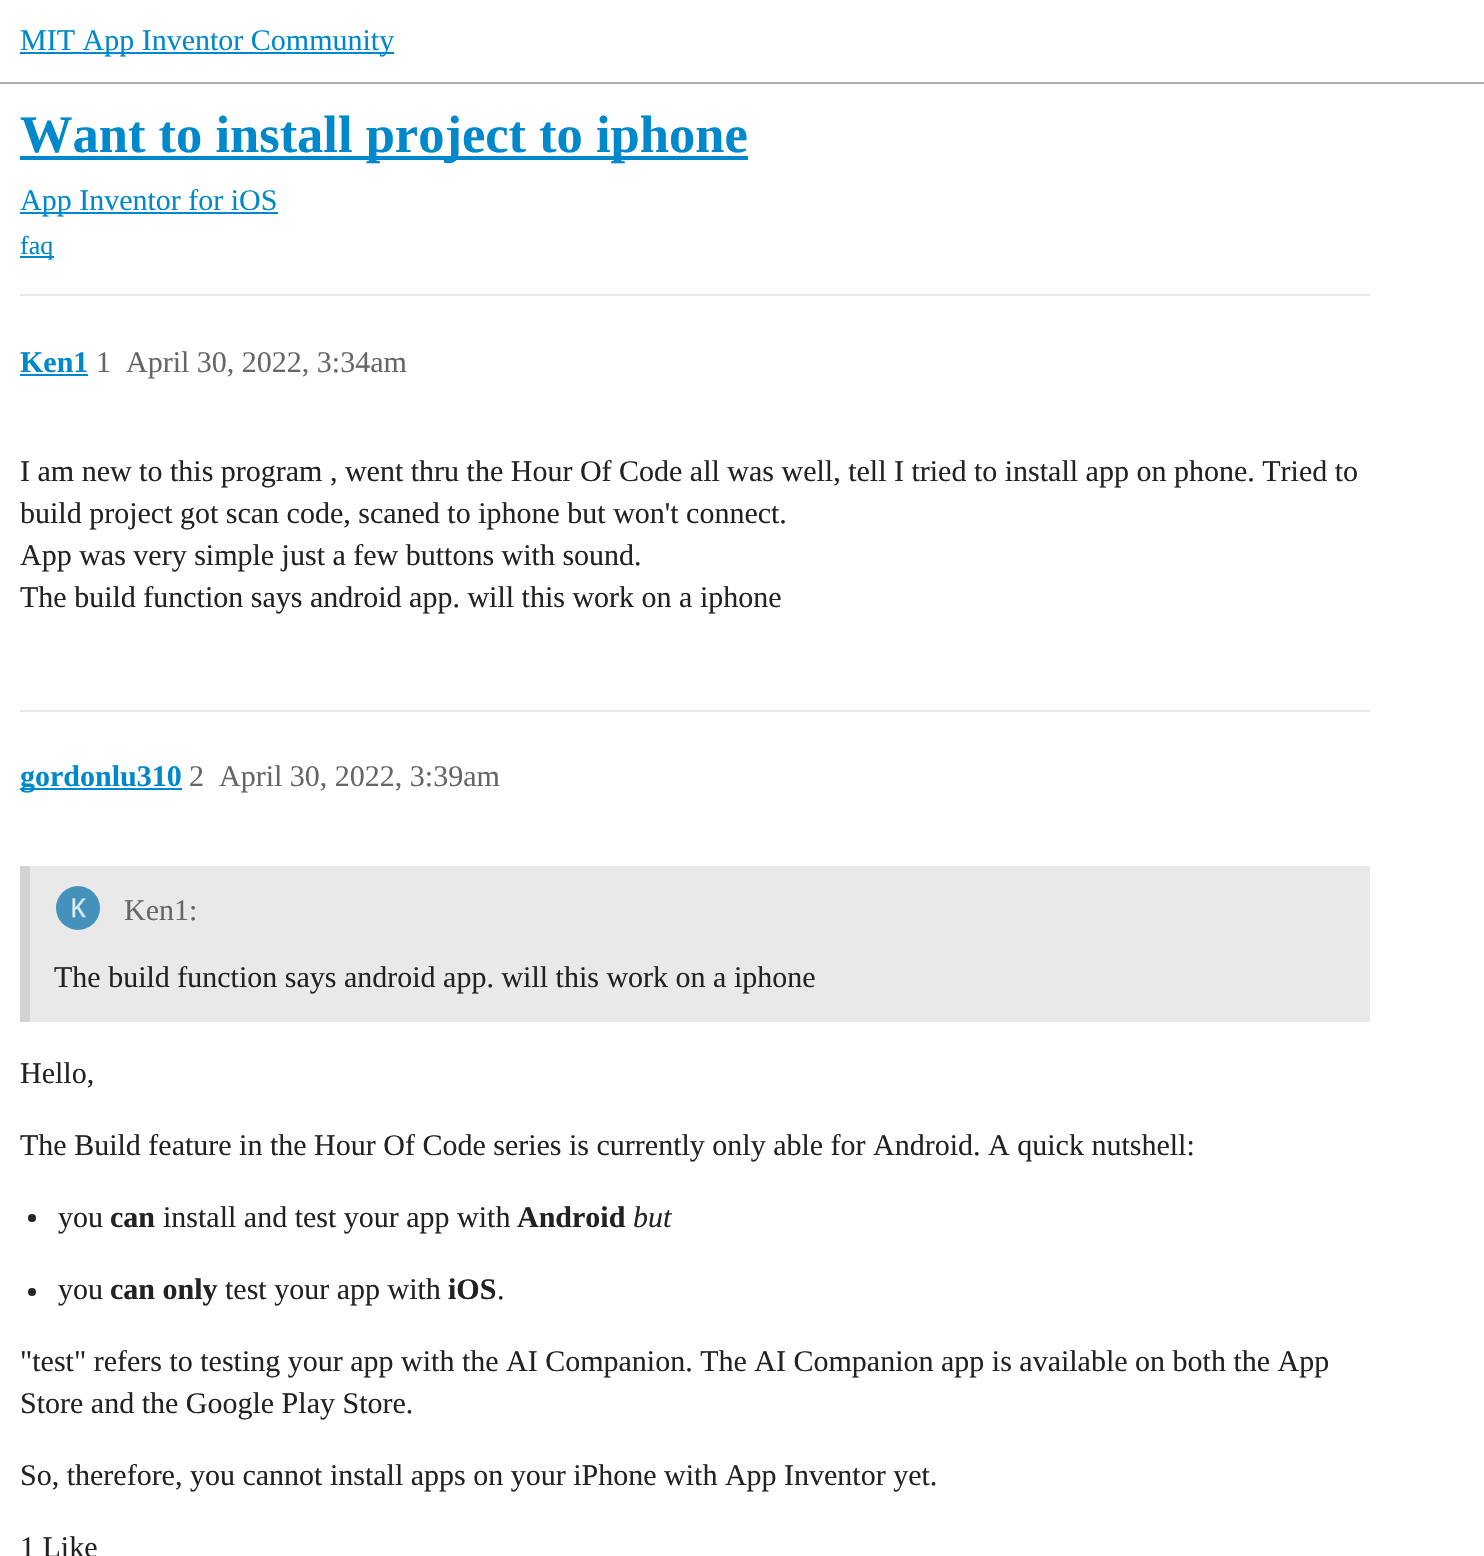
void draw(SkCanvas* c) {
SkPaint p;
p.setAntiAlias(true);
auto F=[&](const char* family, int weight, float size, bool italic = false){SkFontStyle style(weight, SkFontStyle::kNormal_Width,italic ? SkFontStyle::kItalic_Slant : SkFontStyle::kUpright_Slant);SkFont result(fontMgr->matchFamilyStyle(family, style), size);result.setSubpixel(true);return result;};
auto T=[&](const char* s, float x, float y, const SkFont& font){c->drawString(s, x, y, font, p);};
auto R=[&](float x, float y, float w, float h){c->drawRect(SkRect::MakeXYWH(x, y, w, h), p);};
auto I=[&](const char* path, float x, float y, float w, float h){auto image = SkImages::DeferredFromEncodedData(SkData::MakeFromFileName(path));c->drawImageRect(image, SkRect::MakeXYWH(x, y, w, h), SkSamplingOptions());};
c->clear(0xffffffff);
p.setColor(0xffafafaf);
R(0,82,1484,2);
p.setColor(0xff0088cc);
R(20,52,374,2);
auto f1 = F("Liberation Serif",400,30);
T("MIT App Inventor Community",20,50,f1);
R(20,156,728,4);
auto f2 = F("Liberation Serif",700,52.5);
T("Want to install project to iphone",20,152,f2);
R(20,212,258,2);
T("App Inventor for iOS",20,210,f1);
R(20,256,34,2);
auto f3 = F("Liberation Serif",400,26);
T("faq",20,254,f3);
p.setColor(0xffe9e9e9);
R(20,294,1350,2);
auto f4 = F("Liberation Serif",700,30);
p.setColor(0xff0088cc);
T("Ken1",20,372,f4);
R(20,374,68,2);
p.setColor(0xff666666);
T("1",96,372,f1);
T("April 30, 2022, 3:34am",126,372,f1);
p.setColor(0xff222222);
T("I am new to this program , went thru the Hour Of Code all was well, tell I tried to install app on phone. Tried to",20,481,f1);
T("build project got scan code, scaned to iphone but won't connect.",20,523,f1);
T("App was very simple just a few buttons with sound.",20,565,f1);
T("The build function says android app. will this work on a iphone",20,607,f1);
p.setColor(0xffe9e9e9);
R(20,710,1350,2);
p.setColor(0xff0088cc);
R(20,788,162,2);
T("gordonlu310",20,786,f4);
p.setColor(0xff666666);
T("2",189,786,f1);
T("April 30, 2022, 3:39am",219,786,f1);
p.setColor(0xffe9e9e9);
R(30,866,1340,156);
p.setColor(0xffd3d3d3);
R(20,866,10,156);
I("1.png",56,886,44,44);
p.setColor(0xff666666);
T("Ken1:",124,920,f1);
p.setColor(0xff222222);
T("The build function says android app. will this work on a iphone",54,987,f1);
T("Hello,",20,1083,f1);
T("The Build feature in the Hour Of Code series is currently only able for Android. A quick nutshell:",20,1155,f1);
c->drawCircle(32,1218,4,p);
T("you",58,1227,f1);
T("can",110,1227,f4);
T("install and test your app with",163,1227,f1);
T("Android",517,1227,f4);
auto f5 = F("Liberation Serif",400,30,true);
T("but",633,1227,f5);
c->drawCircle(32,1292,4,p);
T("you",58,1299,f1);
T("can only",110,1299,f4);
T("test your app with",225,1299,f1);
T("iOS",448,1299,f4);
T(".",497,1299,f1);
T("\"test\" refers to testing your app with the AI Companion. The AI Companion app is available on both the App",20,1371,f1);
T("Store and the Google Play Store.",20,1413,f1);
T("So, therefore, you cannot install apps on your iPhone with App Inventor yet.",20,1485,f1);
T("1 Like",20,1557,f1);
}
